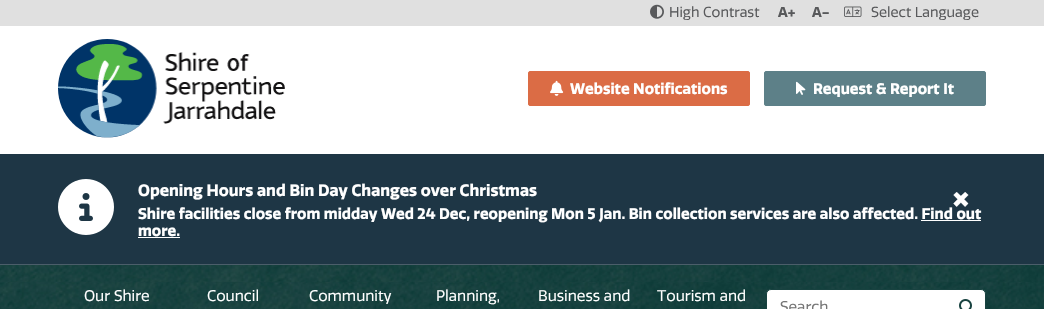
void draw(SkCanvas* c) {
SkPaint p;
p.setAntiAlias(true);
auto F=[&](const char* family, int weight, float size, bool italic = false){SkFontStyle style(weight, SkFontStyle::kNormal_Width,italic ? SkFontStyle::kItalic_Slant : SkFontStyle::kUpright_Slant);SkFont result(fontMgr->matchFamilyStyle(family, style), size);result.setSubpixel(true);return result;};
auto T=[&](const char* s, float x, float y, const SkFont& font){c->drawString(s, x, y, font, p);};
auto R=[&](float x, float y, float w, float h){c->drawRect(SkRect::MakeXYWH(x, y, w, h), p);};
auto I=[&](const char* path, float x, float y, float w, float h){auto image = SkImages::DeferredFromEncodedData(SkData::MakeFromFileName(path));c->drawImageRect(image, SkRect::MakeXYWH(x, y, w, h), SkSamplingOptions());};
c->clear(0xffffffff);
p.setColor(0xffe0e0e0);
R(0,0,1044,26);
I("1.png",650,4,14,15);
auto f1 = F("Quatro",400,14);
p.setColor(0xff58595b);
T("High Contrast",669,17,f1);
auto f2 = F("Quatro",700,14);
T("A+",778,17,f2);
T("A-",812,17,f2);
I("2.png",844,6,18,11);
T("Select Language",871,17,f1);
I("3.png",58,39,227,99);
p.setColor(0xffdb6c45);
c->drawRoundRect(SkRect::MakeXYWH(528.5,71.5,221,34),1.5,1.5,p);
p.setStroke(true);
p.setStrokeWidth(1);
c->drawRoundRect(SkRect::MakeXYWH(528.5,71.5,221,34),1.5,1.5,p);
I("4.png",550,80,14,16);
auto f3 = F("Quatro",700,15);
p.setStroke(false);
p.setColor(0xffffffff);
T("Website Notifications",570,94,f3);
p.setColor(0xff5d8088);
c->drawRoundRect(SkRect::MakeXYWH(764.5,71.5,221,34),1.5,1.5,p);
p.setStroke(true);
c->drawRoundRect(SkRect::MakeXYWH(764.5,71.5,221,34),1.5,1.5,p);
I("5.png",796,81,10,14);
p.setStroke(false);
p.setColor(0xffffffff);
T("Request & Report It",813,94,f3);
p.setColor(0xff1e3645);
R(0,154,1044,110);
p.setColor(0xff4b5e6a);
R(0,264,1044,1);
I("6.png",58,179,56,56);
auto f4 = F("Quatro",700,16);
p.setColor(0xffffffff);
T("Opening Hours and Bin Day Changes over Christmas",138,196,f4);
T("Shire facilities close from midday Wed 24 Dec, reopening Mon 5 Jan. Bin collection services are also affected. Find out",138,219,f3);
R(921,220,60,1);
T("more.",138,236,f3);
R(138,237,42,1);
auto f5 = F("Quatro",700,35);
T("×",952,209,f5);
I("7.png",0,265,1044,44);
auto f6 = F("Quatro",400,15);
T("Our Shire",84,301,f6);
T("Council",207,301,f6);
T("Community",309,301,f6);
T("Planning,",436,301,f6);
T("Business and",538,301,f6);
T("Tourism and",657,301,f6);
c->drawRoundRect(SkRect::MakeXYWH(766.5,289.5,219,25),4.5,4.5,p);
p.setStroke(true);
p.setColor(0xff184240);
c->drawRoundRect(SkRect::MakeXYWH(766.5,289.5,219,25),4.5,4.5,p);
p.setStroke(false);
p.setColor(0xff757575);
T("Search",780,312,f6);
I("8.png",959,299,13,10);
}
